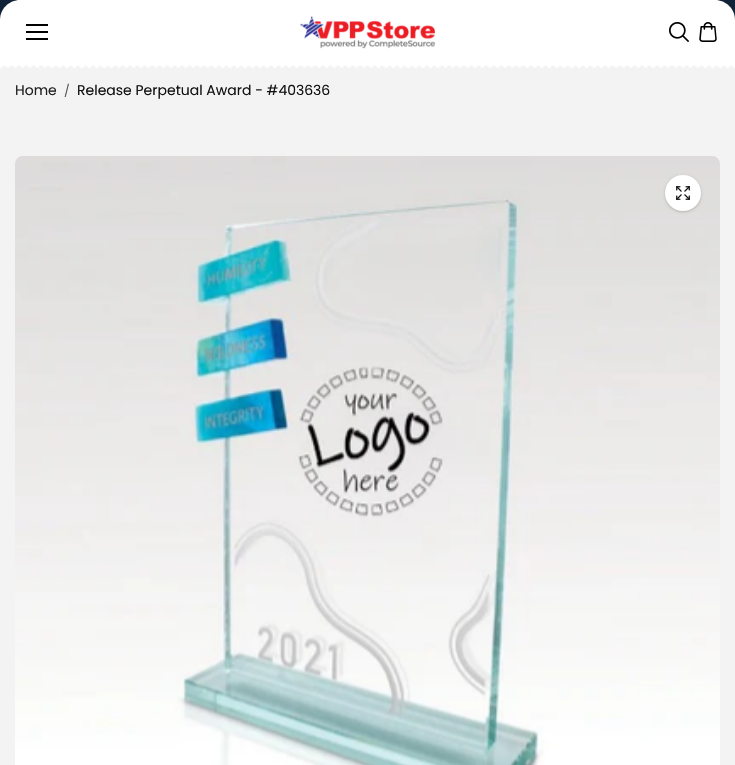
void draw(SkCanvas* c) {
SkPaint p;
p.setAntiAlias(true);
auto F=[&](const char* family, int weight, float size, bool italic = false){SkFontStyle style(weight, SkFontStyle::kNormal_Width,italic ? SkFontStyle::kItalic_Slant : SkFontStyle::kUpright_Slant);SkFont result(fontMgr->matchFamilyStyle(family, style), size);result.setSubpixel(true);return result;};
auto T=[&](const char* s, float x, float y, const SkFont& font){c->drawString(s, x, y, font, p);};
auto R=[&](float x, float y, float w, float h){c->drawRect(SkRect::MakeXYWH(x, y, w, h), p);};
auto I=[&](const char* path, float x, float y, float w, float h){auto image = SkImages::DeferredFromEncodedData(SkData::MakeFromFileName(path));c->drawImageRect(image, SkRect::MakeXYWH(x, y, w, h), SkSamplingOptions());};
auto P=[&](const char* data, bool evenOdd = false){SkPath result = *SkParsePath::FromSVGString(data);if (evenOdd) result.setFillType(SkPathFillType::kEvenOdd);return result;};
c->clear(0xfff3f3f3);
p.setColor(0xff102238);
R(0,0,735,20);
p.setColor(0xffffffff);
c->drawPath(P("M20 0h695c11 0 20 9 20 20v44h-735v-44c0-11 9-20 20-20z"),p);
p.setColor(0xff000000);
R(26,24,22,2);
R(26,31,22,2);
R(26,38,22,2);
I("1.png",300,16,135,33);
I("2.png",669,22,20,20);
I("3.png",699,22,18,20);
I("4.png",0,64,735,4);
auto f1 = F("Poppins",400,14);
p.setColor(0xff212121);
T("Home",15,95,f1);
auto f2 = F("Poppins",400,12);
p.setColor(0xff565656);
T("/",64,95,f2);
p.setColor(0xff121212);
T("Release Perpetual Award - #403636",77,95,f1);
I("5.png",15,156,705,609);
p.setColor(0x30000000);
p.setMaskFilter(SkMaskFilter::MakeBlur(kNormal_SkBlurStyle, 1.5));
c->drawRoundRect(SkRect::MakeXYWH(665,176,36,36),18,18,p);
p.setMaskFilter(nullptr);
p.setColor(0xffffffff);
c->drawCircle(683,193,18,p);
I("6.png",676,186,14,14);
}
